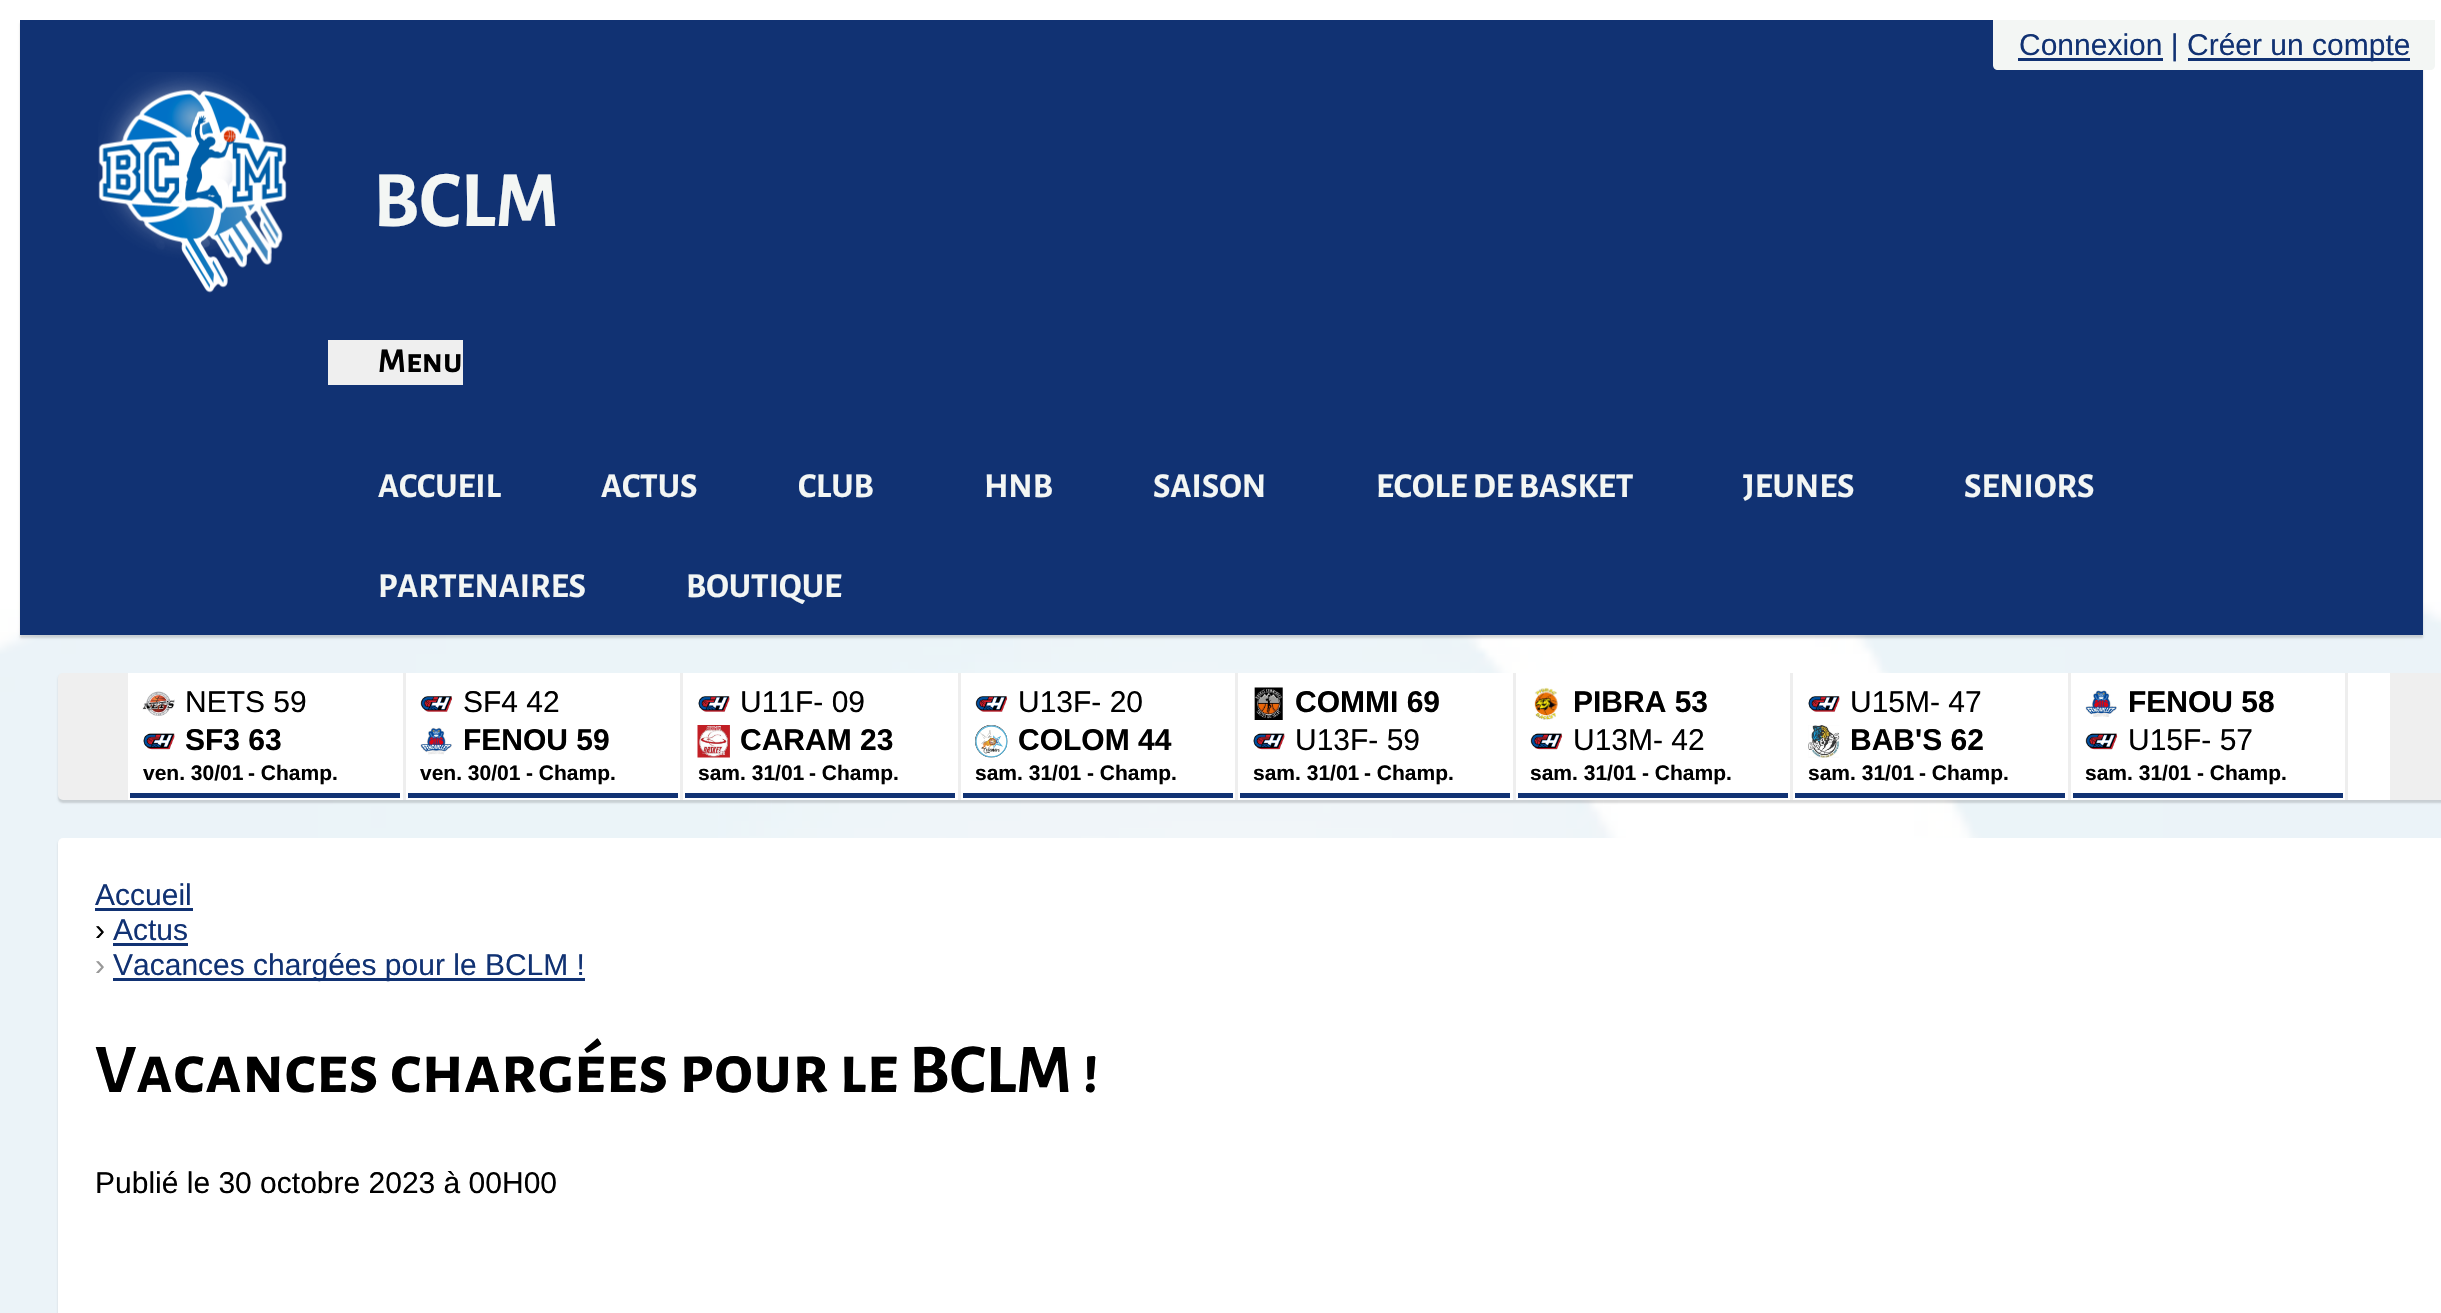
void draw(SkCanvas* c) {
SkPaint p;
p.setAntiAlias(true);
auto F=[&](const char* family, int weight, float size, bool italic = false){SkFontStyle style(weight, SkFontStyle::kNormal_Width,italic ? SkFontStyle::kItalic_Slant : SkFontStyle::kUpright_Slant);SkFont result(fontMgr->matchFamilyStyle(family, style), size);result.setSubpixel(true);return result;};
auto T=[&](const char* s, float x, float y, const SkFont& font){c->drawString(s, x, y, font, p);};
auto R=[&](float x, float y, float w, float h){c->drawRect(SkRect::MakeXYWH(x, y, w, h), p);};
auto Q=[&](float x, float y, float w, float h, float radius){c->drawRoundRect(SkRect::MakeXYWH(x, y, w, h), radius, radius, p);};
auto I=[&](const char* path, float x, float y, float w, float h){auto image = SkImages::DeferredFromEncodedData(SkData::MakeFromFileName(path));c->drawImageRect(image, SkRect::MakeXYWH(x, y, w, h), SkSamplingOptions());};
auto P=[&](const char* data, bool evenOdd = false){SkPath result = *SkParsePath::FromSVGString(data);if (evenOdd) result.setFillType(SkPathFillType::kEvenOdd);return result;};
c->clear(0xffffffff);
I("1.png",0,363,2441,950);
p.setColor(0x26000000);
p.setMaskFilter(SkMaskFilter::MakeBlur(kNormal_SkBlurStyle, 1));
c->drawRect(SkRect::MakeXYWH(20,23,2403,615),p);
p.setMaskFilter(nullptr);
p.setColor(0xff113273);
R(20,20,2403,615);
p.setColor(0xfff3f6f4);
c->drawPath(P("M1993 20h442v45c0 3-2 5-5 5h-432c-3 0-5-2-5-5z"),p);
p.setColor(0xff113273);
R(2018,58,145,3);
auto f1 = F("Liberation Sans",400,30);
T("Connexion |",2019,55,f1);
R(2188,58,222,3);
T("Créer un compte",2187,55,f1);
I("2.png",98,72,189,221);
auto f2 = F("Alegreya Sans SC",700,80);
p.setColor(0xfff3f6f4);
T("BCLM",373,226,f2);
p.setColor(0xffefefef);
R(328,340,135,45);
auto f3 = F("Alegreya Sans SC",700,35);
p.setColor(0xff000000);
T("Menu",378,372,f3);
p.setColor(0xfff3f6f4);
T("ACCUEIL",378,497,f3);
T("ACTUS",601,497,f3);
T("CLUB",798,497,f3);
T("HNB",984,497,f3);
T("SAISON",1153,497,f3);
T("ECOLE DE BASKET",1376,497,f3);
T("JEUNES",1743,497,f3);
T("SENIORS",1964,497,f3);
T("PARTENAIRES",378,597,f3);
T("BOUTIQUE",686,597,f3);
p.setColor(0x26000000);
p.setMaskFilter(SkMaskFilter::MakeBlur(kNormal_SkBlurStyle, 1));
c->drawRoundRect(SkRect::MakeXYWH(58,675,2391,128),5,5,p);
p.setMaskFilter(nullptr);
p.setColor(0xffefefef);
Q(58,673,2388,127,5);
p.setColor(0xffffffff);
R(128,673,2262,127);
p.setColor(0xffeeeeee);
R(403,673,3,127);
p.setColor(0xff113273);
R(130,793,270,5);
I("3.png",142,691,33,25);
p.setColor(0xff000000);
T("NETS 59",185,712,f1);
I("4.png",143,733,32,17);
auto f4 = F("Liberation Sans",700,30);
T("SF3 63",185,750,f4);
auto f5 = F("Liberation Sans",700,21);
T("ven. 30/01",143,780,f5);
T("- Champ.",248,780,f5);
p.setColor(0xffeeeeee);
R(680,673,3,127);
p.setColor(0xff113273);
R(408,793,270,5);
I("5.png",420,696,33,16);
p.setColor(0xff000000);
T("SF4 42",463,712,f1);
I("6.png",420,727,32,28);
T("FENOU 59",463,750,f4);
T("ven. 30/01",420,780,f5);
T("- Champ.",526,780,f5);
p.setColor(0xffeeeeee);
R(958,673,3,127);
p.setColor(0xff113273);
R(685,793,270,5);
I("7.png",698,696,32,16);
p.setColor(0xff000000);
T("U11F- 09",740,712,f1);
I("8.png",697,725,33,33);
T("CARAM 23",740,750,f4);
T("sam. 31/01",698,780,f5);
T("- Champ.",809,780,f5);
p.setColor(0xffeeeeee);
R(1235,673,3,127);
p.setColor(0xff113273);
R(963,793,270,5);
I("5.png",975,696,33,16);
p.setColor(0xff000000);
T("U13F- 20",1018,712,f1);
I("9.png",975,725,33,33);
T("COLOM 44",1018,750,f4);
T("sam. 31/01",975,780,f5);
T("- Champ.",1087,780,f5);
p.setColor(0xffeeeeee);
R(1513,673,3,127);
p.setColor(0xff113273);
R(1240,793,270,5);
I("10.png",1254,687,29,33);
p.setColor(0xff000000);
T("COMMI 69",1295,712,f4);
I("11.png",1253,733,32,17);
T("U13F- 59",1295,750,f1);
T("sam. 31/01",1253,780,f5);
T("- Champ.",1364,780,f5);
p.setColor(0xffeeeeee);
R(1790,673,3,127);
p.setColor(0xff113273);
R(1518,793,270,5);
I("12.png",1534,687,24,33);
p.setColor(0xff000000);
T("PIBRA 53",1573,712,f4);
I("13.png",1530,733,33,17);
T("U13M- 42",1573,750,f1);
T("sam. 31/01",1530,780,f5);
T("- Champ.",1642,780,f5);
p.setColor(0xffeeeeee);
R(2068,673,3,127);
p.setColor(0xff113273);
R(1795,793,270,5);
I("14.png",1808,696,32,16);
p.setColor(0xff000000);
T("U15M- 47",1850,712,f1);
I("15.png",1808,725,32,33);
T("BAB'S 62",1850,750,f4);
T("sam. 31/01",1808,780,f5);
T("- Champ.",1919,780,f5);
p.setColor(0xffeeeeee);
R(2345,673,3,127);
p.setColor(0xff113273);
R(2073,793,270,5);
I("16.png",2085,690,32,27);
p.setColor(0xff000000);
T("FENOU 58",2128,712,f4);
I("13.png",2085,733,33,17);
T("U15F- 57",2128,750,f1);
T("sam. 31/01",2085,780,f5);
T("- Champ.",2197,780,f5);
p.setColor(0x26000000);
p.setMaskFilter(SkMaskFilter::MakeBlur(kNormal_SkBlurStyle, 1));
c->drawRoundRect(SkRect::MakeXYWH(58,840,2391,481),5,5,p);
p.setMaskFilter(nullptr);
p.setColor(0xffffffff);
Q(58,838,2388,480,5);
p.setColor(0xff113273);
T("Accueil",95,905,f1);
R(95,908,98,3);
p.setColor(0xff000000);
T("›",95,940,f1);
p.setColor(0xff113273);
T("Actus",113,940,f1);
R(113,943,75,3);
p.setColor(0xff999999);
T("›",95,975,f1);
p.setColor(0xff113273);
R(113,978,472,3);
T("Vacances chargées pour le BCLM !",113,975,f1);
auto f6 = F("Alegreya Sans SC",700,70);
p.setColor(0xff000000);
T("Vacances chargées pour le BCLM !",95,1092,f6);
T("Publié le 30 octobre 2023 à 00H00",95,1193,f1);
}
